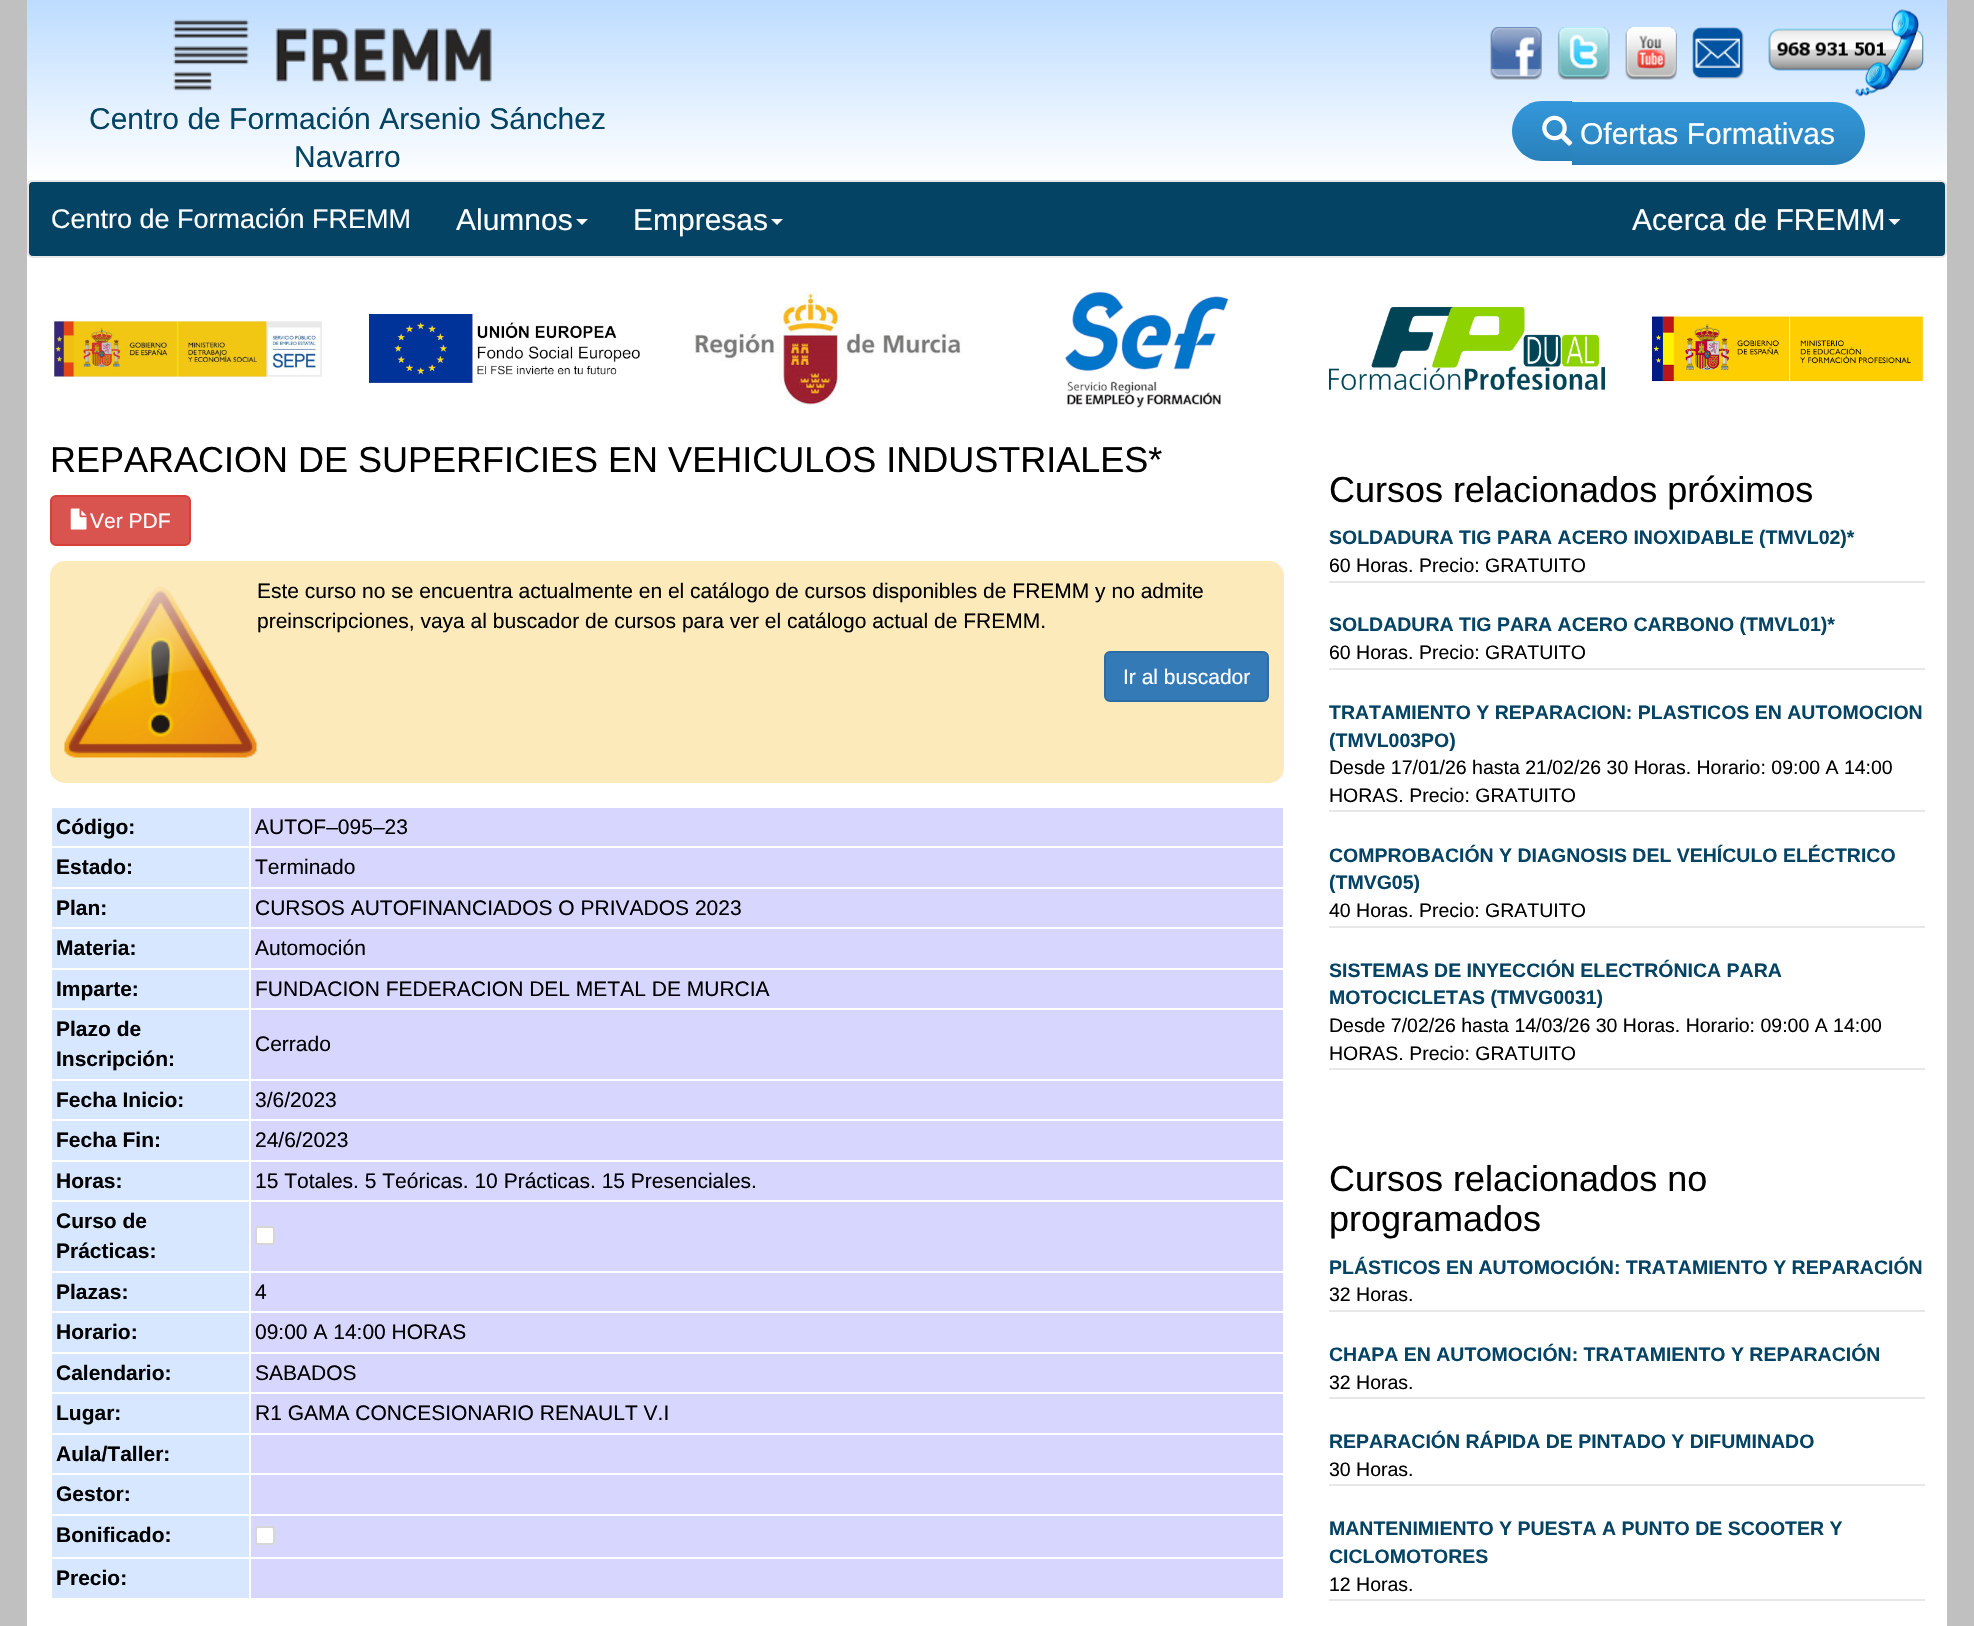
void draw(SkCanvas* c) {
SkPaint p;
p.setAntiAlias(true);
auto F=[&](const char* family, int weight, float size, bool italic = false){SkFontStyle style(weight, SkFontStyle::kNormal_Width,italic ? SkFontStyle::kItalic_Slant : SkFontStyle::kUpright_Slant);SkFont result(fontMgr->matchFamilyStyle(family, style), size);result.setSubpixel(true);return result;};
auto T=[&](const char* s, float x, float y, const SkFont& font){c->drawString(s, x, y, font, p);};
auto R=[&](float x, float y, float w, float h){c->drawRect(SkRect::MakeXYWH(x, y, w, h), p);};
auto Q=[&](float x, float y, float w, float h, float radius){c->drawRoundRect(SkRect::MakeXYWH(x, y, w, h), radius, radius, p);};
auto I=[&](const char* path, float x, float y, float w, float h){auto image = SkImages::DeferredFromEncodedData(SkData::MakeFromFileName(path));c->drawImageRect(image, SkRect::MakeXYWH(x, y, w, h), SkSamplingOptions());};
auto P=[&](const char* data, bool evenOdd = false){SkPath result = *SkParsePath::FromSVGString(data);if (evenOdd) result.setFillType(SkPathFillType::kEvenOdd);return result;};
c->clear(0xffc0c0c0);
p.setColor(0xffffffff);
R(27,180,1920,1446);
{
const SkColor colors[] = {0xffffffff,0xffbddcff};
const float stops[] = {0,1};
const SkPoint ends[] = {{987,180}, {987,0}};
p.setShader(SkGradientShader::MakeLinear(ends, colors, stops, 2, SkTileMode::kClamp));
p.setAlpha(255);
}
R(27,0,1920,180);
I("1.png",173,19,319,72);
auto f1 = F("Liberation Sans",400,30);
p.setShader(nullptr);
p.setColor(0xff044364);
T("Centro de Formación Arsenio Sánchez",89,129,f1);
T("Navarro",294,167,f1);
I("2.png",1490,27,52,53);
I("3.png",1557,27,53,53);
I("4.png",1625,27,52,53);
I("5.png",1692,27,52,52);
I("6.png",1768,9,156,88);
{
const SkColor colors[] = {0xff3498db,0xff2980b9};
const float stops[] = {0,1};
const SkPoint ends[] = {{1542,101}, {1542,161}};
p.setShader(SkGradientShader::MakeLinear(ends, colors, stops, 2, SkTileMode::kClamp));
p.setAlpha(255);
}
c->drawPath(P("M1542 101h30v60h-30c-16.5 0-30-13.5-30-30c0-16.5 13.5-30 30-30z"),p);
{
const SkColor colors[] = {0xff3498db,0xff2980b9};
const float stops[] = {0,1};
const SkPoint ends[] = {{1718,102}, {1718,165}};
p.setShader(SkGradientShader::MakeLinear(ends, colors, stops, 2, SkTileMode::kClamp));
p.setAlpha(255);
}
c->drawPath(P("M1572 102h261.5c17.5 0 31.5 14 31.5 31.5c0 17.5-14 31.5-31.5 31.5h-261.5z"),p);
I("7.png",1542,115,31,31);
p.setShader(nullptr);
p.setColor(0xffffffff);
T("Ofertas Formativas",1580,144,f1);
p.setColor(0xff044364);
c->drawRoundRect(SkRect::MakeXYWH(28,181,1918,76),5,5,p);
p.setStroke(true);
p.setStrokeWidth(2);
p.setColor(0xffe7e7e7);
c->drawRoundRect(SkRect::MakeXYWH(28,181,1918,76),5,5,p);
auto f2 = F("Liberation Sans",400,27);
p.setStroke(false);
p.setColor(0xffffffff);
T("Centro de Formación FREMM",51,228,f2);
T("Alumnos",456,230,f1);
c->drawPath(P("M576 219h12l-6 6z"),p);
T("Empresas",633,230,f1);
c->drawPath(P("M771 219h12l-6 6z"),p);
T("Acerca de FREMM",1632,230,f1);
c->drawPath(P("M1888.5 219h12l-6 6z"),p);
I("8.png",53,319,269,59);
I("9.png",369,314,271,69);
I("10.png",690,291,272,114);
I("11.png",1065,291,164,117);
I("12.png",1329,307,276,83);
I("13.png",1652,316,271,66);
auto f3 = F("Liberation Sans",400,36);
p.setColor(0xff000000);
T("REPARACION DE SUPERFICIES EN VEHICULOS INDUSTRIALES*",50,472,f3);
p.setColor(0xffd9534f);
c->drawRoundRect(SkRect::MakeXYWH(51,496,139,49),5,5,p);
p.setStroke(true);
p.setColor(0xffd43f3a);
c->drawRoundRect(SkRect::MakeXYWH(51,496,139,49),5,5,p);
I("14.png",70,508,17,22);
auto f4 = F("Liberation Sans",400,21);
p.setStroke(false);
p.setColor(0xffffffff);
T("Ver PDF",90,528,f4);
p.setColor(0xfffceabb);
Q(50,561,1234,222,15);
I("15.png",64,586,193,173);
p.setColor(0xff000000);
T("Este curso no se encuentra actualmente en el catálogo de cursos disponibles de FREMM y no admite",257,598,f4);
T("preinscripciones, vaya al buscador de cursos para ver el catálogo actual de FREMM.",257,628,f4);
p.setColor(0xff337ab7);
c->drawRoundRect(SkRect::MakeXYWH(1105,652,163,49),5,5,p);
p.setStroke(true);
p.setColor(0xff2e6da4);
c->drawRoundRect(SkRect::MakeXYWH(1105,652,163,49),5,5,p);
p.setStroke(false);
p.setColor(0xffffffff);
T("Ir al buscador",1123,684,f4);
p.setColor(0xffd6e7ff);
R(52,808,197,38);
auto f5 = F("Liberation Sans",700,21);
p.setColor(0xff000000);
T("Código:",56,834,f5);
p.setColor(0xffd6d6ff);
R(251,808,1032,38);
p.setColor(0xff000000);
T("AUTOF–095–23",255,834,f4);
p.setColor(0xffd6e7ff);
R(52,848,197,39);
p.setColor(0xff000000);
T("Estado:",56,874,f5);
p.setColor(0xffd6d6ff);
R(251,848,1032,39);
p.setColor(0xff000000);
T("Terminado",255,874,f4);
p.setColor(0xffd6e7ff);
R(52,889,197,38);
p.setColor(0xff000000);
T("Plan:",56,915,f5);
p.setColor(0xffd6d6ff);
R(251,889,1032,38);
p.setColor(0xff000000);
T("CURSOS AUTOFINANCIADOS O PRIVADOS 2023",255,915,f4);
p.setColor(0xffd6e7ff);
R(52,929,197,39);
p.setColor(0xff000000);
T("Materia:",56,955,f5);
p.setColor(0xffd6d6ff);
R(251,929,1032,39);
p.setColor(0xff000000);
T("Automoción",255,955,f4);
p.setColor(0xffd6e7ff);
R(52,970,197,38);
p.setColor(0xff000000);
T("Imparte:",56,996,f5);
p.setColor(0xffd6d6ff);
R(251,970,1032,38);
p.setColor(0xff000000);
T("FUNDACION FEDERACION DEL METAL DE MURCIA",255,996,f4);
p.setColor(0xffd6e7ff);
R(52,1010,197,69);
p.setColor(0xff000000);
T("Plazo de",56,1036,f5);
T("Inscripción:",56,1066,f5);
p.setColor(0xffd6d6ff);
R(251,1010,1032,69);
p.setColor(0xff000000);
T("Cerrado",255,1051,f4);
p.setColor(0xffd6e7ff);
R(52,1081,197,38);
p.setColor(0xff000000);
T("Fecha Inicio:",56,1107,f5);
p.setColor(0xffd6d6ff);
R(251,1081,1032,38);
p.setColor(0xff000000);
T("3/6/2023",255,1107,f4);
p.setColor(0xffd6e7ff);
R(52,1121,197,39);
p.setColor(0xff000000);
T("Fecha Fin:",56,1147,f5);
p.setColor(0xffd6d6ff);
R(251,1121,1032,39);
p.setColor(0xff000000);
T("24/6/2023",255,1147,f4);
p.setColor(0xffd6e7ff);
R(52,1162,197,38);
p.setColor(0xff000000);
T("Horas:",56,1188,f5);
p.setColor(0xffd6d6ff);
R(251,1162,1032,38);
p.setColor(0xff000000);
T("15 Totales. 5 Teóricas. 10 Prácticas. 15 Presenciales.",255,1188,f4);
p.setColor(0xffd6e7ff);
R(52,1202,197,69);
p.setColor(0xff000000);
T("Curso de",56,1228,f5);
T("Prácticas:",56,1258,f5);
p.setColor(0xffd6d6ff);
R(251,1202,1032,69);
p.setColor(0xffffffff);
Q(255,1226,20,19,3);
p.setStroke(true);
p.setColor(0x4d767676);
c->drawRoundRect(SkRect::MakeXYWH(256,1227,18,17),2,2,p);
p.setStroke(false);
p.setColor(0xffd6e7ff);
R(52,1273,197,38);
p.setColor(0xff000000);
T("Plazas:",56,1299,f5);
p.setColor(0xffd6d6ff);
R(251,1273,1032,38);
p.setColor(0xff000000);
T("4",255,1299,f4);
p.setColor(0xffd6e7ff);
R(52,1313,197,39);
p.setColor(0xff000000);
T("Horario:",56,1339,f5);
p.setColor(0xffd6d6ff);
R(251,1313,1032,39);
p.setColor(0xff000000);
T("09:00 A 14:00 HORAS",255,1339,f4);
p.setColor(0xffd6e7ff);
R(52,1354,197,38);
p.setColor(0xff000000);
T("Calendario:",56,1380,f5);
p.setColor(0xffd6d6ff);
R(251,1354,1032,38);
p.setColor(0xff000000);
T("SABADOS",255,1380,f4);
p.setColor(0xffd6e7ff);
R(52,1394,197,39);
p.setColor(0xff000000);
T("Lugar:",56,1420,f5);
p.setColor(0xffd6d6ff);
R(251,1394,1032,39);
p.setColor(0xff000000);
T("R1 GAMA CONCESIONARIO RENAULT V.I",255,1420,f4);
p.setColor(0xffd6e7ff);
R(52,1435,197,38);
p.setColor(0xff000000);
T("Aula/Taller:",56,1461,f5);
p.setColor(0xffd6d6ff);
R(251,1435,1032,38);
p.setColor(0xffd6e7ff);
R(52,1475,197,39);
p.setColor(0xff000000);
T("Gestor:",56,1501,f5);
p.setColor(0xffd6d6ff);
R(251,1475,1032,39);
p.setColor(0xffd6e7ff);
R(52,1516,197,41);
p.setColor(0xff000000);
T("Bonificado:",56,1542,f5);
p.setColor(0xffd6d6ff);
R(251,1516,1032,41);
p.setColor(0xffffffff);
Q(255,1526,20,19,3);
p.setStroke(true);
p.setColor(0x4d767676);
c->drawRoundRect(SkRect::MakeXYWH(256,1527,18,17),2,2,p);
p.setStroke(false);
p.setColor(0xffd6e7ff);
R(52,1559,197,39);
p.setColor(0xff000000);
T("Precio:",56,1585,f5);
p.setColor(0xffd6d6ff);
R(251,1559,1032,39);
p.setColor(0xff000000);
T("Cursos relacionados próximos",1329,502,f3);
p.setColor(0xffe7e7e7);
R(1329,581,596,2);
auto f6 = F("Liberation Sans",700,19.5);
p.setColor(0xff044364);
T("SOLDADURA TIG PARA ACERO INOXIDABLE (TMVL02)*",1329,544,f6);
auto f7 = F("Liberation Sans",400,19.5);
p.setColor(0xff000000);
T("60 Horas. Precio: GRATUITO",1329,572,f7);
p.setColor(0xffe7e7e7);
R(1329,668,596,2);
p.setColor(0xff044364);
T("SOLDADURA TIG PARA ACERO CARBONO (TMVL01)*",1329,631,f6);
p.setColor(0xff000000);
T("60 Horas. Precio: GRATUITO",1329,659,f7);
p.setColor(0xffe7e7e7);
R(1329,810,596,2);
p.setColor(0xff044364);
T("TRATAMIENTO Y REPARACION: PLASTICOS EN AUTOMOCION",1329,719,f6);
T("(TMVL003PO)",1329,747,f6);
p.setColor(0xff000000);
T("Desde 17/01/26 hasta 21/02/26 30 Horas. Horario: 09:00 A 14:00",1329,774,f7);
T("HORAS. Precio: GRATUITO",1329,802,f7);
p.setColor(0xffe7e7e7);
R(1329,926,596,2);
p.setColor(0xff044364);
T("COMPROBACIÓN Y DIAGNOSIS DEL VEHÍCULO ELÉCTRICO",1329,862,f6);
T("(TMVG05)",1329,889,f6);
p.setColor(0xff000000);
T("40 Horas. Precio: GRATUITO",1329,917,f7);
p.setColor(0xffe7e7e7);
R(1329,1068,596,2);
p.setColor(0xff044364);
T("SISTEMAS DE INYECCIÓN ELECTRÓNICA PARA",1329,977,f6);
T("MOTOCICLETAS (TMVG0031)",1329,1004,f6);
p.setColor(0xff000000);
T("Desde 7/02/26 hasta 14/03/26 30 Horas. Horario: 09:00 A 14:00",1329,1032,f7);
T("HORAS. Precio: GRATUITO",1329,1060,f7);
T("Cursos relacionados no",1329,1191,f3);
T("programados",1329,1231,f3);
p.setColor(0xffe7e7e7);
R(1329,1310,596,2);
p.setColor(0xff044364);
T("PLÁSTICOS EN AUTOMOCIÓN: TRATAMIENTO Y REPARACIÓN",1329,1274,f6);
p.setColor(0xff000000);
T("32 Horas.",1329,1301,f7);
p.setColor(0xffe7e7e7);
R(1329,1397,596,2);
p.setColor(0xff044364);
T("CHAPA EN AUTOMOCIÓN: TRATAMIENTO Y REPARACIÓN",1329,1361,f6);
p.setColor(0xff000000);
T("32 Horas.",1329,1389,f7);
p.setColor(0xffe7e7e7);
R(1329,1484,596,2);
p.setColor(0xff044364);
T("REPARACIÓN RÁPIDA DE PINTADO Y DIFUMINADO",1329,1448,f6);
p.setColor(0xff000000);
T("30 Horas.",1329,1476,f7);
p.setColor(0xffe7e7e7);
R(1329,1599,596,2);
p.setColor(0xff044364);
T("MANTENIMIENTO Y PUESTA A PUNTO DE SCOOTER Y",1329,1535,f6);
T("CICLOMOTORES",1329,1563,f6);
p.setColor(0xff000000);
T("12 Horas.",1329,1591,f7);
}
